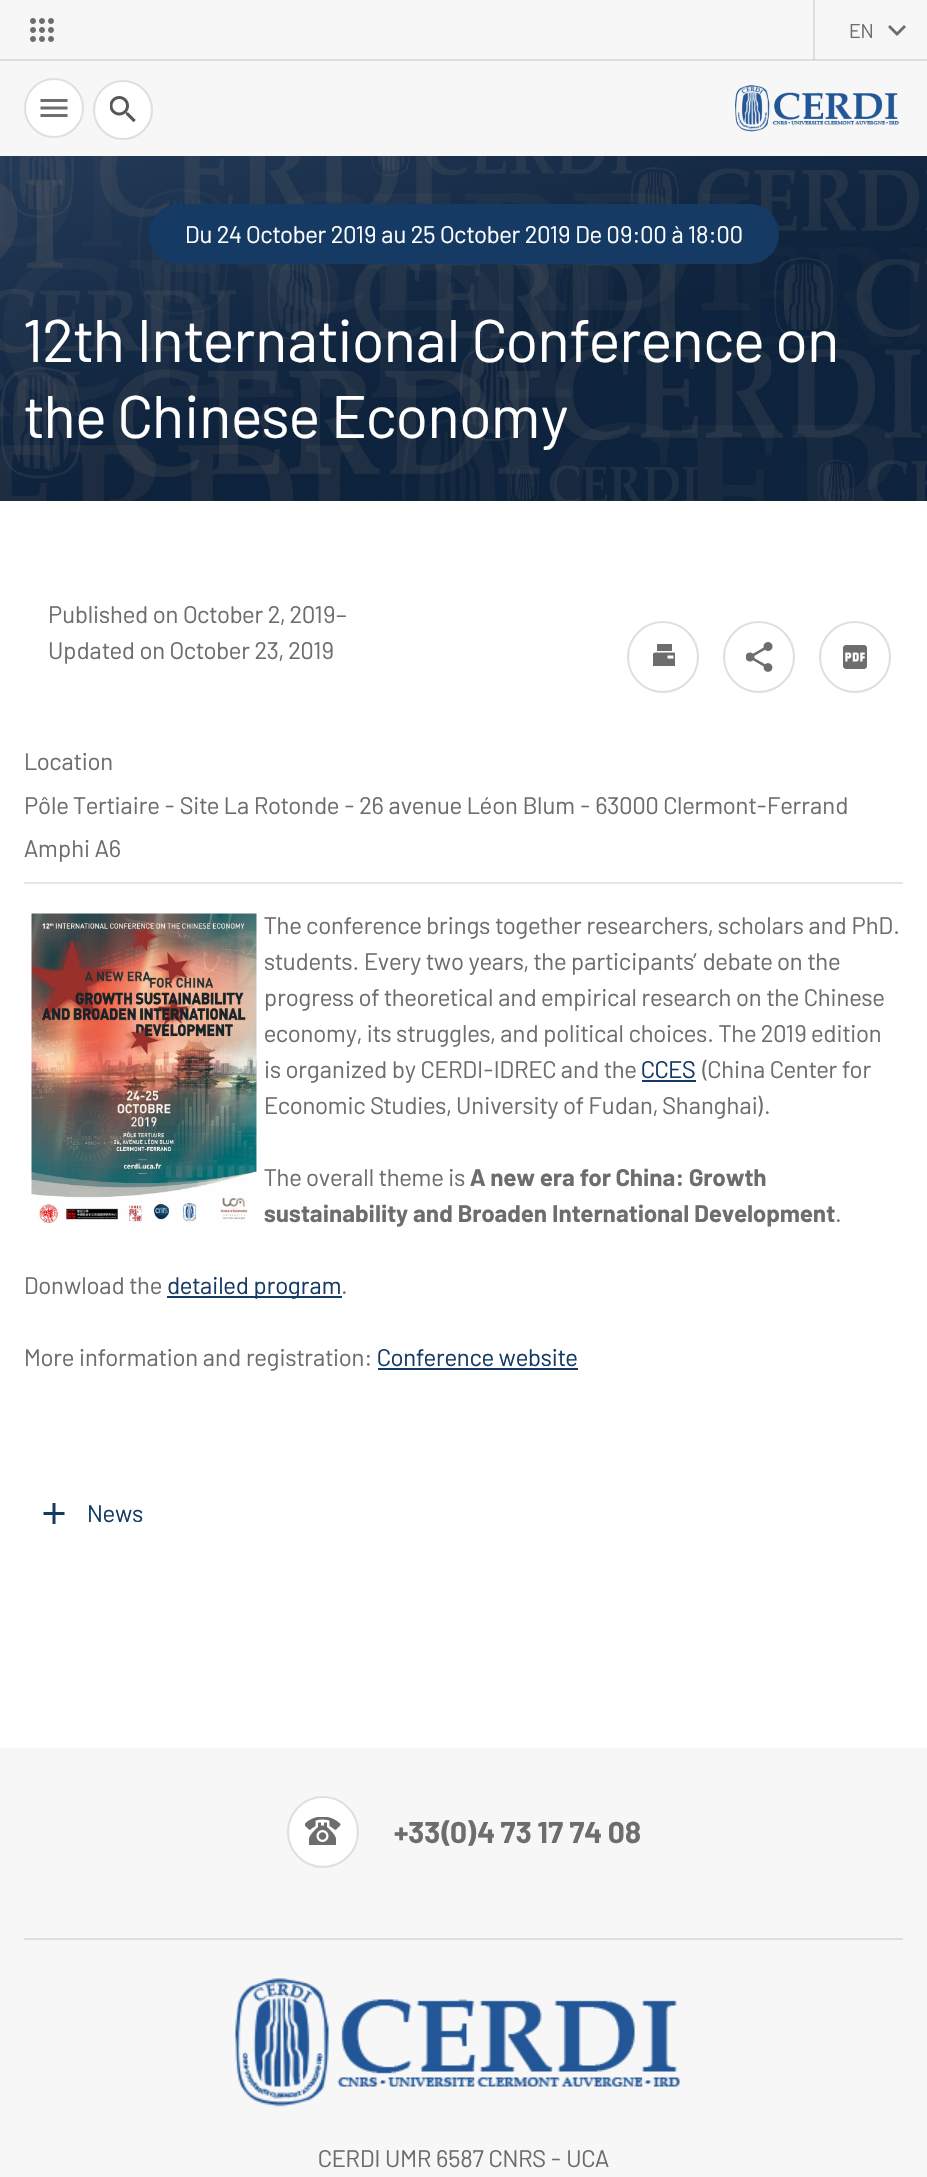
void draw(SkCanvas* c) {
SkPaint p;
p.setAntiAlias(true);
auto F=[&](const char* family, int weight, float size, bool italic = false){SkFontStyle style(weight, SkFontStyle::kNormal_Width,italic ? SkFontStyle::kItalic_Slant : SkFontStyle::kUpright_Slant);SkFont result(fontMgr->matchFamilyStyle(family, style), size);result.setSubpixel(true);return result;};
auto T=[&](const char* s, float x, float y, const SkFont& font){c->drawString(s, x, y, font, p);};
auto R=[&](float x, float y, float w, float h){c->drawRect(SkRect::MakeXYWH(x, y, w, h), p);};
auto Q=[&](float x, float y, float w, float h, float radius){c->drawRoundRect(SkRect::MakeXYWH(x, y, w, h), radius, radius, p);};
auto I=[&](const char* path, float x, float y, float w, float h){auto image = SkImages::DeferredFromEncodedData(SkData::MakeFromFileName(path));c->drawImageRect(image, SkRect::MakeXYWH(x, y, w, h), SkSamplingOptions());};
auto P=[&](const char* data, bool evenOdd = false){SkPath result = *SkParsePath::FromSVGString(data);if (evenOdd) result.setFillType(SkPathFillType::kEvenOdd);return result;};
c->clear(0xffffffff);
p.setColor(0xfff7f7f7);
R(0,0,927,156);
p.setColor(0xffdedede);
R(813,0,2,60);
R(0,59,927,2);
p.setColor(0xffc8c8c8);
R(813,59,2,1);
I("1.png",30,18,24,24);
auto f1 = F("Barlow",400,20);
p.setColor(0xff6d6d6c);
T("EN",849,38,f1);
c->drawPath(P("M890 25l7 7l7-7l2 2l-9 9l-9-9z",true),p);
p.setColor(0xffffffff);
c->drawCircle(54,108,29,p);
p.setStroke(true);
p.setStrokeWidth(2);
p.setColor(0xffdfdfdf);
c->drawCircle(54,108,29,p);
I("2.png",40,99,28,18);
p.setStroke(false);
p.setColor(0xffffffff);
c->drawCircle(123,110,29,p);
p.setStroke(true);
p.setColor(0xffdfdfdf);
c->drawCircle(123,110,29,p);
I("3.png",110,96,26,27);
I("4.png",735,85,164,47);
I("5.png",0,156,927,345);
p.setStroke(false);
p.setColor(0xff153a64);
Q(149,204,630,60,30);
auto f2 = F("Barlow",400,24);
p.setColor(0xffffffff);
T("Du 24 October 2019 au 25 October 2019 De 09:00 à 18:00",185,243,f2);
auto f3 = F("Barlow",400,60);
T("12th International Conference on",24,362,f3);
T("the Chinese Economy",24,438,f3);
p.setColor(0xff6d6d6c);
T("Published on October 2, 2019–",48,623,f2);
T("Updated on October 23, 2019",48,659,f2);
p.setStroke(true);
p.setColor(0xffdfdfdf);
c->drawCircle(663,657,35,p);
I("6.png",653,644,22,22);
c->drawCircle(759,657,35,p);
I("7.png",746,642,27,30);
c->drawCircle(855,657,35,p);
I("8.png",843,645,24,24);
p.setStroke(false);
p.setColor(0xffe0e8ea);
R(24,882,879,2);
p.setColor(0xff6d6d6c);
T("Location",24,770,f2);
T("Pôle Tertiaire - Site La Rotonde - 26 avenue Léon Blum - 63000 Clermont-Ferrand",24,814,f2);
T("Amphi A6",24,857,f2);
I("9.png",31,913,226,310);
T("The conference brings together researchers, scholars and PhD.",264,934,f2);
T("students. Every two years, the participants’ debate on the",264,970,f2);
T("progress of theoretical and empirical research on the Chinese",264,1006,f2);
T("economy, its struggles, and political choices. The 2019 edition",264,1042,f2);
T("is organized by CERDI-IDREC and the",264,1078,f2);
p.setColor(0xff153a64);
T("CCES",641,1078,f2);
R(642,1080,54,2);
p.setColor(0xff6d6d6c);
T("(China Center for",701,1078,f2);
T("Economic Studies, University of Fudan, Shanghai).",264,1114,f2);
T("The overall theme is",264,1186,f2);
auto f4 = F("Barlow",700,24);
T("A new era for China: Growth",470,1186,f4);
T("sustainability and Broaden International Development",264,1222,f4);
T(".",835,1222,f2);
T("Donwload the",24,1294,f2);
p.setColor(0xff153a64);
R(167,1296,175,2);
T("detailed program",167,1294,f2);
p.setColor(0xff6d6d6c);
T(".",341,1294,f2);
T("More information and registration:",24,1366,f2);
p.setColor(0xff153a64);
T("Conference website",377,1366,f2);
R(378,1368,200,2);
I("10.png",43,1503,22,21);
T("News",87,1522,f2);
p.setColor(0xfff7f7f7);
R(0,1748,927,429);
p.setColor(0xffdedede);
R(24,1938,879,2);
p.setColor(0xffffffff);
c->drawCircle(323,1832,35,p);
p.setStroke(true);
p.setColor(0xffdfdfdf);
c->drawCircle(323,1832,35,p);
I("11.png",305,1817,36,28);
auto f5 = F("Barlow",700,30);
p.setStroke(false);
p.setColor(0xff6d6d6c);
T("+33(0)4 73 17 74 08",394,1843,f5);
I("12.png",235,1978,445,129);
T("CERDI UMR 6587 CNRS - UCA",318,2167,f2);
}
